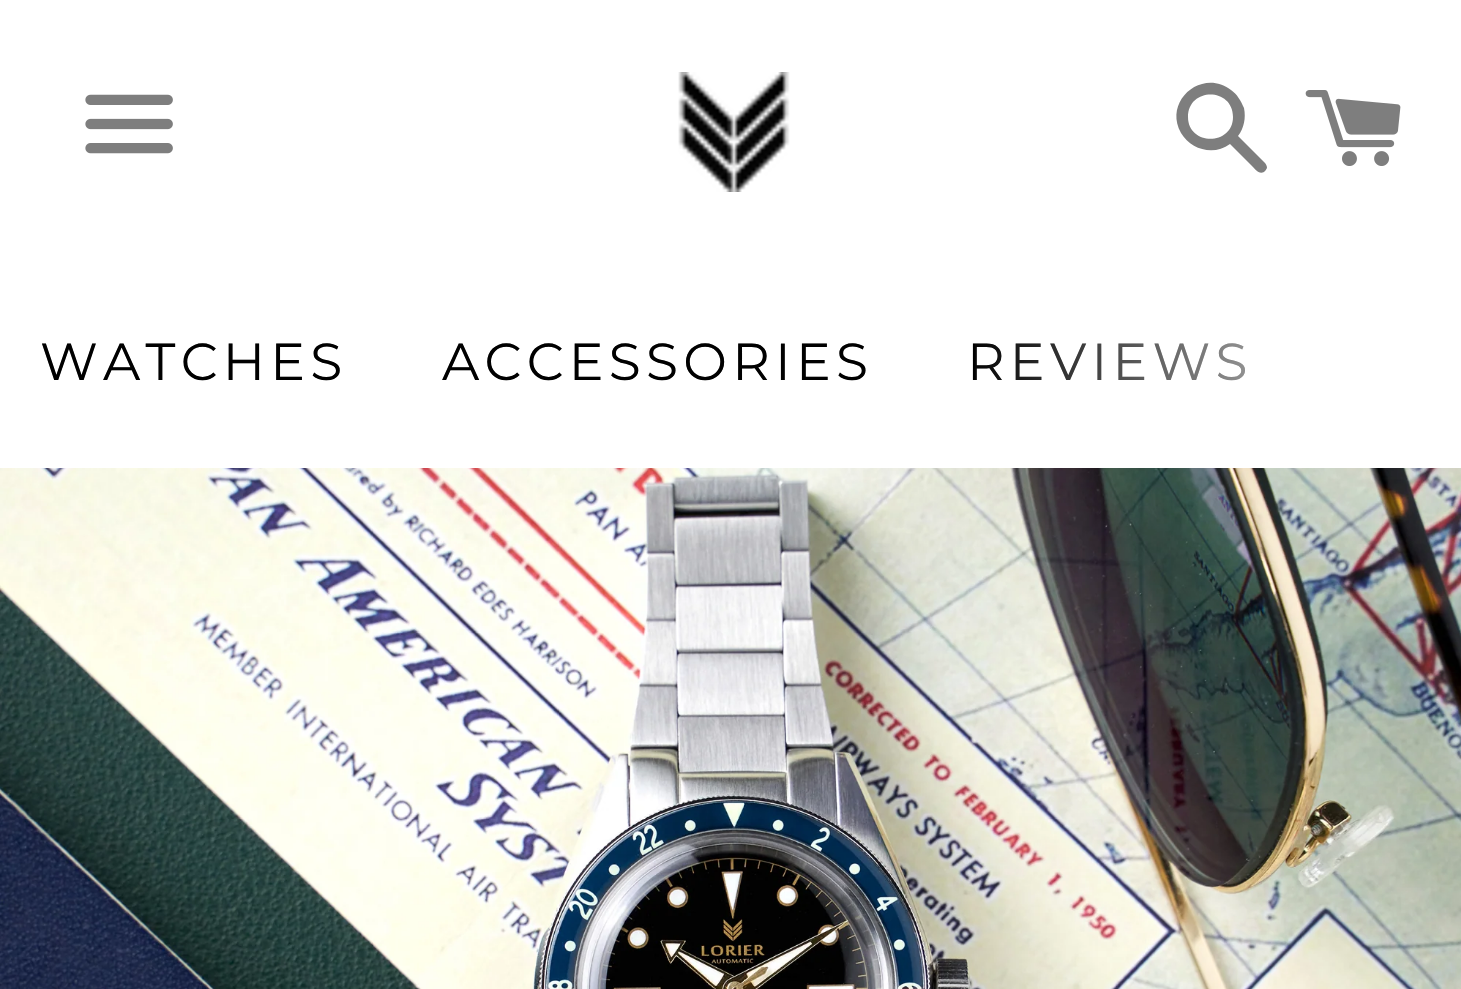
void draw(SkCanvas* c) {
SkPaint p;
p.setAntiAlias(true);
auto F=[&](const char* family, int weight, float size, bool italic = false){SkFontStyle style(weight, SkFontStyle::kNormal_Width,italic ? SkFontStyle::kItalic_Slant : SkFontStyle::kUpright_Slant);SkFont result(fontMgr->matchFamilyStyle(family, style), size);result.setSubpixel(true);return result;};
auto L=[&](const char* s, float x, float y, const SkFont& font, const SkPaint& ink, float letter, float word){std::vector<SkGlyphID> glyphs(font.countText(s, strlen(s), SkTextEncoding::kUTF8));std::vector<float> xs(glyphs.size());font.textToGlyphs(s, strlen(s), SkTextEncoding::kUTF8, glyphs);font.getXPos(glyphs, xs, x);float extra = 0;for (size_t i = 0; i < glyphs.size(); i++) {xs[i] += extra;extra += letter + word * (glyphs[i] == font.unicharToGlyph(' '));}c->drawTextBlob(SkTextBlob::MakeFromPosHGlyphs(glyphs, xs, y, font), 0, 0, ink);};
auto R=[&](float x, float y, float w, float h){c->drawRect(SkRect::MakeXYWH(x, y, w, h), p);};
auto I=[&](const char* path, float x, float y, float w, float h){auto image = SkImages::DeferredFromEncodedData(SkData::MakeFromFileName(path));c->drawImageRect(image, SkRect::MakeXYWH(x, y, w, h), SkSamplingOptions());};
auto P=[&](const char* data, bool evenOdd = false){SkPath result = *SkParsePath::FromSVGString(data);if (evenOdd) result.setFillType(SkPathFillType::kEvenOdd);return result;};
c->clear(0xffffffff);
I("1.png",85,94,88,60);
I("2.png",678,72,112,120);
p.setColor(0xff7e7e7e);
c->drawPath(P("M1265 163l-27-27c6-8 8-18 6-28c-3-7-7-14-13-18c-29-22-68 11-50 43c10 17 33 23 49 11l22 22c3 3 7 9 12 6c1-1 2-2 3-4c0-2-1-4-2-5zm-77-46c0-30 45-30 45 0c0 29-45 29-45 0z"),p);
I("3.png",1305,90,96,76);
auto f1 = F("Montserrat",100,52);
p.setColor(0xff000000);
L("WATCHES",40,380,f1,p,5.25,0);
L("ACCESSORIES",442,380,f1,p,5.25,0);
L("REVIEWS",967,380,f1,p,5.25,0);
{
const SkColor colors[] = {0x00ffffff,0xffffffff};
const float stops[] = {0,1};
const SkPoint ends[] = {{964,364}, {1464,364}};
p.setShader(SkGradientShader::MakeLinear(ends, colors, stops, 2, SkTileMode::kClamp));
p.setAlpha(255);
}
R(975,343,270,38);
I("4.png",0,468,1461,521);
}
